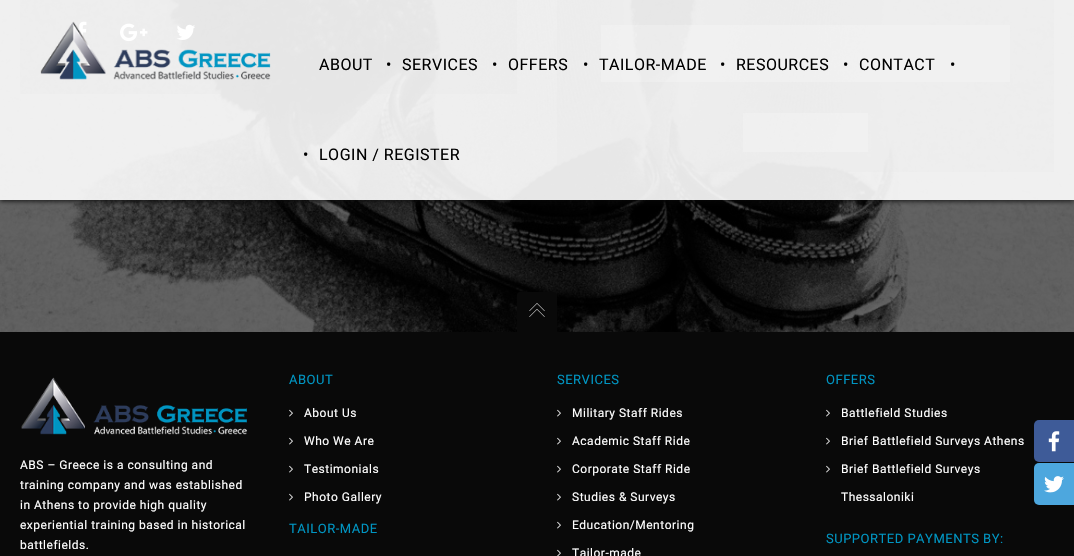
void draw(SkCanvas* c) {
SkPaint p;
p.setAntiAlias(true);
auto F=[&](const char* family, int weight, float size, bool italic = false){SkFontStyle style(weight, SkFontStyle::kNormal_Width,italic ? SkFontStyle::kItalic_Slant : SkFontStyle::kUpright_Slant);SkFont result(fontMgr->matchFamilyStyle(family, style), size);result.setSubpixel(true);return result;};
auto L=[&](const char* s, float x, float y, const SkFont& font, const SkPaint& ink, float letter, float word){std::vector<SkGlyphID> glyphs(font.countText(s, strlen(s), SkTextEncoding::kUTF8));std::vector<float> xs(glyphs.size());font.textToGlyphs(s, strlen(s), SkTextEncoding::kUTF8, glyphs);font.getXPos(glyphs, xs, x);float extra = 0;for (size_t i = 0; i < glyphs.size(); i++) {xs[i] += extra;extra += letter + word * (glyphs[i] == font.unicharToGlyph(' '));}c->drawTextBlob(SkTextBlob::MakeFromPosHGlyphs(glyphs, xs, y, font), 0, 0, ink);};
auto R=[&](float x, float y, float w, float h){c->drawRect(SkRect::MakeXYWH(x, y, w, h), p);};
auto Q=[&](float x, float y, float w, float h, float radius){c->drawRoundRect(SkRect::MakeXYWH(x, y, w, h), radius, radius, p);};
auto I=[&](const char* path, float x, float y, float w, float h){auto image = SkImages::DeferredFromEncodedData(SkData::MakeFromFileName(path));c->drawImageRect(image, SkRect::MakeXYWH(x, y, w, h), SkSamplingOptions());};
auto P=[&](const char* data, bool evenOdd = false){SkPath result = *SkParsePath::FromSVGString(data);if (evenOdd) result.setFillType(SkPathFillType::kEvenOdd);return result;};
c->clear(0xffffffff);
I("1.png",0,0,1074,332);
p.setColor(0x40000000);
R(20,0,497,94);
I("2.png",76,21,11,19);
I("3.png",120,23,28,19);
I("4.png",176,24,20,16);
R(557,0,497,172);
p.setColor(0x33ffffff);
R(601,25,409,57);
R(743,113,125,39);
c->save();
c->clipRect(SkRect::MakeXYWH(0,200,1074,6));
p.setColor(0xe6080808);
p.setMaskFilter(SkMaskFilter::MakeBlur(kNormal_SkBlurStyle, 2.5));
c->drawRect(SkRect::MakeXYWH(0,1,1074,200),p);
p.setMaskFilter(nullptr);
c->restore();
p.setColor(0xe6ffffff);
R(0,0,1074,200);
I("5.png",40,21,231,59);
auto f1 = F("Roboto",400,16);
p.setColor(0xff000000);
L("ABOUT",319,70,f1,p,.5,0);
L("•",386,70,f1,p,.5,0);
L("SERVICES",402,70,f1,p,.5,0);
L("•",492,70,f1,p,.5,0);
L("OFFERS",508,70,f1,p,.5,0);
L("•",583,70,f1,p,.5,0);
L("TAILOR-MADE",599,70,f1,p,.5,0);
L("•",720,70,f1,p,.5,0);
L("RESOURCES",736,70,f1,p,.5,0);
L("•",843,70,f1,p,.5,0);
L("CONTACT",859,70,f1,p,.5,0);
L("•",950,70,f1,p,.5,0);
L("•",303,160,f1,p,.5,0);
L("LOGIN / REGISTER",319,160,f1,p,.5,0);
p.setColor(0xff090909);
R(0,332,1074,224);
c->drawPath(P("M520 292h34c1.5 0 3 1.5 3 3v37h-40v-37c0-1.5 1.5-3 3-3z"),p);
I("6.png",529,303,16,14);
I("7.png",21,377,226,58);
auto f2 = F("Roboto",400,12);
p.setColor(0xffffffff);
L("ABS – Greece is a consulting and",20,469,f2,p,.5,0);
L("training company and was established",20,489,f2,p,.5,0);
L("in Athens to provide high quality",20,509,f2,p,.5,0);
L("experiential training based in historical",20,529,f2,p,.5,0);
L("battlefields.",20,549,f2,p,.5,0);
auto f3 = F("Roboto",400,13);
p.setColor(0xff0095c2);
L("ABOUT",289,384,f3,p,.5,0);
I("8.png",289,409,4,8);
p.setColor(0xffffffff);
L("About Us",304,417,f2,p,.5,0);
I("8.png",289,437,4,8);
L("Who We Are",304,445,f2,p,.5,0);
I("8.png",289,465,4,8);
L("Testimonials",304,473,f2,p,.5,0);
I("8.png",289,493,4,8);
L("Photo Gallery",304,501,f2,p,.5,0);
p.setColor(0xff0095c2);
L("TAILOR-MADE",289,533,f3,p,.5,0);
L("SERVICES",557,384,f3,p,.5,0);
I("8.png",557,409,4,8);
p.setColor(0xffffffff);
L("Military Staff Rides",572,417,f2,p,.5,0);
I("8.png",557,437,4,8);
L("Academic Staff Ride",572,445,f2,p,.5,0);
I("8.png",557,465,4,8);
L("Corporate Staff Ride",572,473,f2,p,.5,0);
I("8.png",557,493,4,8);
L("Studies & Surveys",572,501,f2,p,.5,0);
I("8.png",557,521,4,8);
L("Education/Mentoring",572,529,f2,p,.5,0);
I("9.png",557,549,4,7);
L("Tailor-made",572,557,f2,p,.5,0);
p.setColor(0xff0095c2);
L("OFFERS",826,384,f3,p,.5,0);
I("8.png",826,409,4,8);
p.setColor(0xffffffff);
L("Battlefield Studies",841,417,f2,p,.5,0);
I("8.png",826,437,4,8);
L("Brief Battlefield Surveys Athens",841,445,f2,p,.5,0);
I("8.png",826,465,4,8);
L("Brief Battlefield Surveys",841,473,f2,p,.5,0);
L("Thessaloniki",841,501,f2,p,.5,0);
p.setColor(0xff0095c2);
L("SUPPORTED PAYMENTS BY:",826,543,f3,p,.5,0);
p.setColor(0xff3e5b98);
Q(1034,420,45,42,5);
I("10.png",1048,431,12,21);
p.setColor(0xff4da7de);
Q(1034,463,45,42,5);
I("11.png",1044,476,20,17);
}
